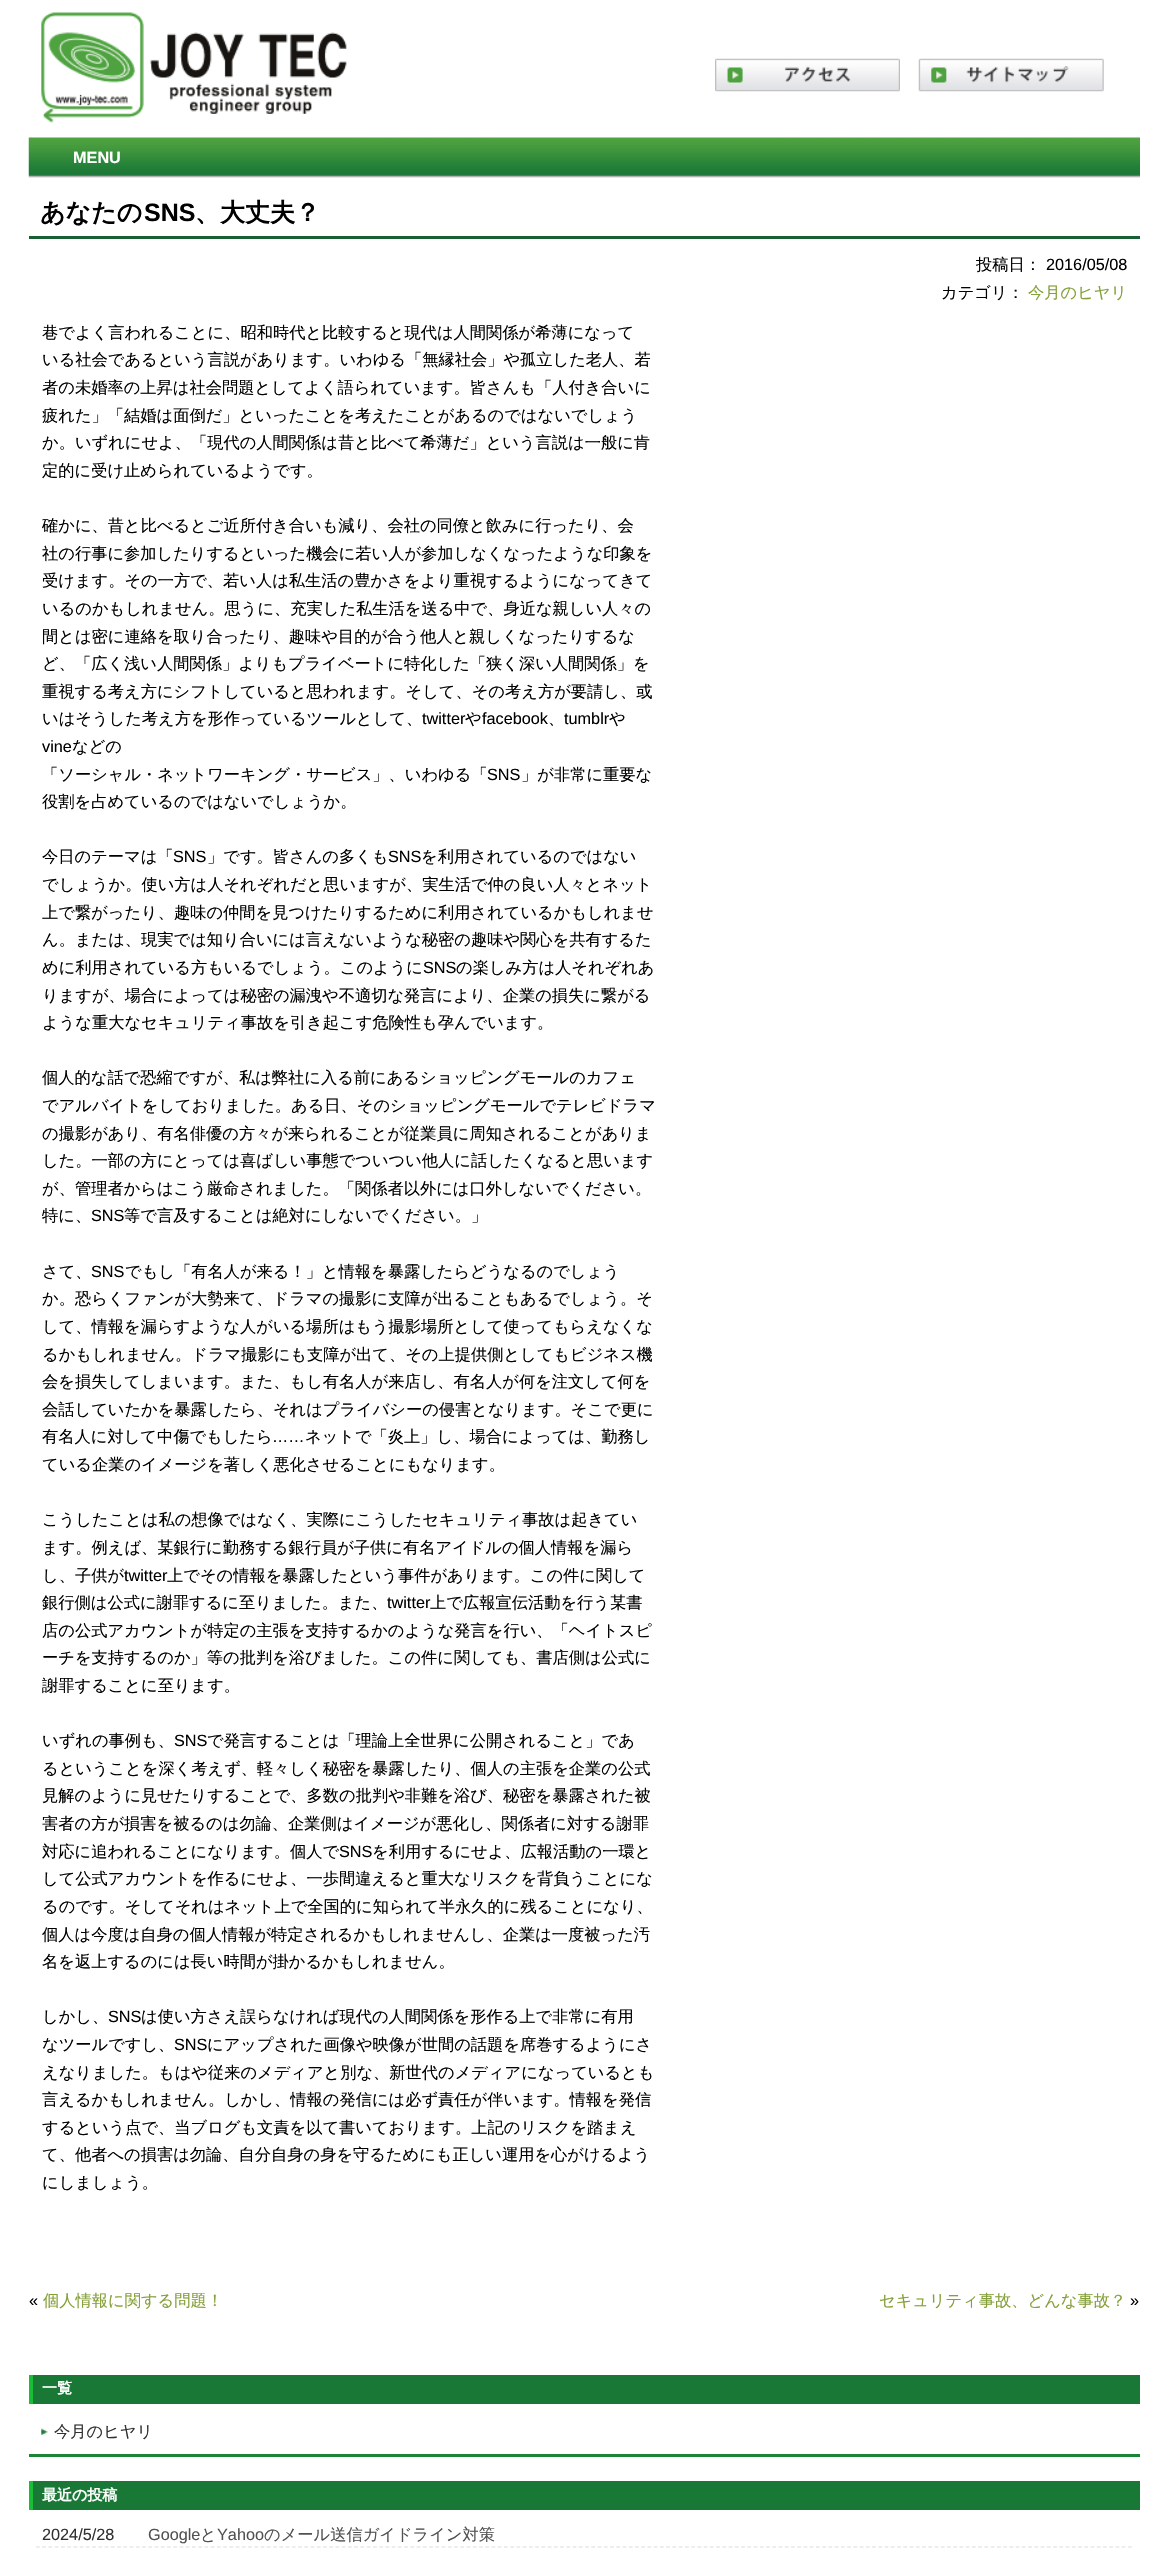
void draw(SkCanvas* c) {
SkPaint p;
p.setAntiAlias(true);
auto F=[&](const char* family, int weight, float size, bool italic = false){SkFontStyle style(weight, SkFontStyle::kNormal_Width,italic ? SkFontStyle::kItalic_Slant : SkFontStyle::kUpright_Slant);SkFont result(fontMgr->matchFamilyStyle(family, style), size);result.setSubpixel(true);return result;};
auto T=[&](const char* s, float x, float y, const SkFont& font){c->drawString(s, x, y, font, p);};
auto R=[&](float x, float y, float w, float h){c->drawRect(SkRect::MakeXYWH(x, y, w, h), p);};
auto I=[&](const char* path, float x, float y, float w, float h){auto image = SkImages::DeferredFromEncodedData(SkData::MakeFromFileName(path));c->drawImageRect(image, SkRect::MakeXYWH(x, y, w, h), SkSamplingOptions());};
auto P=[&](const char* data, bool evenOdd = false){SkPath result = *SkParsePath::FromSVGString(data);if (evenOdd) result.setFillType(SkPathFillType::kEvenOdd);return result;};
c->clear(0xffffffff);
I("1.png",41,12,306,111);
I("2.png",715,58,185,34);
I("3.png",918,58,186,34);
I("4.png",28,137,1112,41);
auto f1 = F("Liberation Sans",700,16.25);
p.setColor(0xffffffff);
T("MENU",73,163,f1);
p.setColor(0xff1a5e36);
R(29,236,1111,3);
auto f2 = F("WenQuanYi Zen Hei",700,25);
p.setColor(0xff000000);
T("あなたの",40,221,f2);
auto f3 = F("Liberation Sans",700,25);
T("SNS",144,221,f3);
T("、大丈夫？",195,221,f2);
auto f4 = F("WenQuanYi Zen Hei",500,16.25);
T("投稿日：",976,270,f4);
auto f5 = F("Liberation Sans",400,16.25);
T("2016/05/08",1046,270,f5);
T("カテゴリ：",941,298,f4);
p.setColor(0xff84a038);
T("今月のヒヤリ",1028,298,f4);
p.setColor(0xff000000);
T("巷でよく言われることに、昭和時代と比較すると現代は人間関係が希薄になって",42,338,f4);
T("いる社会であるという言説があります。いわゆる「無縁社会」や孤立した老人、若",42,365,f4);
T("者の未婚率の上昇は社会問題としてよく語られています。皆さんも「人付き合いに",42,393,f4);
T("疲れた」「結婚は面倒だ」といったことを考えたことがあるのではないでしょう",42,421,f4);
T("か。いずれにせよ、「現代の人間関係は昔と比べて希薄だ」という言説は一般に肯",42,448,f4);
T("定的に受け止められているようです。",42,476,f4);
T("確かに、昔と比べるとご近所付き合いも減り、会社の同僚と飲みに行ったり、会",42,531,f4);
T("社の行事に参加したりするといった機会に若い人が参加しなくなったような印象を",42,559,f4);
T("受けます。その一方で、若い人は私生活の豊かさをより重視するようになってきて",42,586,f4);
T("いるのかもしれません。思うに、充実した私生活を送る中で、身近な親しい人々の",42,614,f4);
T("間とは密に連絡を取り合ったり、趣味や目的が合う他人と親しくなったりするな",42,642,f4);
T("ど、「広く浅い人間関係」よりもプライベートに特化した「狭く深い人間関係」を",42,669,f4);
T("重視する考え方にシフトしていると思われます。そして、その考え方が要請し、或",42,697,f4);
T("いはそうした考え方を形作っているツールとして、",42,724,f4);
T("twitter",422,724,f5);
T("や",465,724,f4);
T("facebook",482,724,f5);
T("、",548,724,f4);
T("tumblr",564,724,f5);
T("や",609,724,f4);
T("vine",42,752,f5);
T("などの",72,752,f4);
T("「ソーシャル・ネットワーキング・サービス」、いわゆる「",42,780,f4);
T("SNS",487,780,f5);
T("」が非常に重要な",521,780,f4);
T("役割を占めているのではないでしょうか。",42,807,f4);
T("今日のテーマは「",42,862,f4);
T("SNS",173,862,f5);
T("」です。皆さんの多くも",207,862,f4);
T("SNS",388,862,f5);
T("を利用されているのではない",421,862,f4);
T("でしょうか。使い方は人それぞれだと思いますが、実生活で仲の良い人々とネット",42,890,f4);
T("上で繋がったり、趣味の仲間を見つけたりするために利用されているかもしれませ",42,918,f4);
T("ん。または、現実では知り合いには言えないような秘密の趣味や関心を共有するた",42,945,f4);
T("めに利用されている方もいるでしょう。このように",42,973,f4);
T("SNS",423,973,f5);
T("の楽しみ方は人それぞれあ",456,973,f4);
T("りますが、場合によっては秘密の漏洩や不適切な発言により、企業の損失に繋がる",42,1001,f4);
T("ような重大なセキュリティ事故を引き起こす危険性も孕んでいます。",42,1028,f4);
T("個人的な話で恐縮ですが、私は弊社に入る前にあるショッピングモールのカフェ",42,1083,f4);
T("でアルバイトをしておりました。ある日、そのショッピングモールでテレビドラマ",42,1111,f4);
T("の撮影があり、有名俳優の方々が来られることが従業員に周知されることがありま",42,1139,f4);
T("した。一部の方にとっては喜ばしい事態でついつい他人に話したくなると思います",42,1166,f4);
T("が、管理者からはこう厳命されました。「関係者以外には口外しないでください。",42,1194,f4);
T("特に、",42,1221,f4);
T("SNS",91,1221,f5);
T("等で言及することは絶対にしないでください。」",124,1221,f4);
T("さて、",42,1277,f4);
T("SNS",91,1277,f5);
T("でもし「有名人が来る！」と情報を暴露したらどうなるのでしょう",125,1277,f4);
T("か。恐らくファンが大勢来て、ドラマの撮影に支障が出ることもあるでしょう。そ",42,1304,f4);
T("して、情報を漏らすような人がいる場所はもう撮影場所として使ってもらえなくな",42,1332,f4);
T("るかもしれません。ドラマ撮影にも支障が出て、その上提供側としてもビジネス機",42,1360,f4);
T("会を損失してしまいます。また、もし有名人が来店し、有名人が何を注文して何を",42,1387,f4);
T("会話していたかを暴露したら、それはプライバシーの侵害となります。そこで更に",42,1415,f4);
T("有名人に対して中傷でもしたら",42,1442,f4);
T("……",272,1442,f5);
T("ネットで「炎上」し、場合によっては、勤務し",305,1442,f4);
T("ている企業のイメージを著しく悪化させることにもなります。",42,1470,f4);
T("こうしたことは私の想像ではなく、実際にこうしたセキュリティ事故は起きてい",42,1525,f4);
T("ます。例えば、某銀行に勤務する銀行員が子供に有名アイドルの個人情報を漏ら",42,1553,f4);
T("し、子供が",42,1581,f4);
T("twitter",124,1581,f5);
T("上でその情報を暴露したという事件があります。この件に関して",167,1581,f4);
T("銀行側は公式に謝罪するに至りました。また、",42,1608,f4);
T("twitter",387,1608,f5);
T("上で広報宣伝活動を行う某書",430,1608,f4);
T("店の公式アカウントが特定の主張を支持するかのような発言を行い、「ヘイトスピ",42,1636,f4);
T("ーチを支持するのか」等の批判を浴びました。この件に関しても、書店側は公式に",42,1663,f4);
T("謝罪することに至ります。",42,1691,f4);
T("いずれの事例も、",42,1746,f4);
T("SNS",174,1746,f5);
T("で発言することは「理論上全世界に公開されること」であ",207,1746,f4);
T("るということを深く考えず、軽々しく秘密を暴露したり、個人の主張を企業の公式",42,1774,f4);
T("見解のように見せたりすることで、多数の批判や非難を浴び、秘密を暴露された被",42,1801,f4);
T("害者の方が損害を被るのは勿論、企業側はイメージが悪化し、関係者に対する謝罪",42,1829,f4);
T("対応に追われることになります。個人で",42,1857,f4);
T("SNS",339,1857,f5);
T("を利用するにせよ、広報活動の一環と",372,1857,f4);
T("して公式アカウントを作るにせよ、一歩間違えると重大なリスクを背負うことにな",42,1884,f4);
T("るのです。そしてそれはネット上で全国的に知られて半永久的に残ることになり、",42,1912,f4);
T("個人は今度は自身の個人情報が特定されるかもしれませんし、企業は一度被った汚",42,1940,f4);
T("名を返上するのには長い時間が掛かるかもしれません。",42,1967,f4);
T("しかし、",42,2022,f4);
T("SNS",108,2022,f5);
T("は使い方さえ誤らなければ現代の人間関係を形作る上で非常に有用",141,2022,f4);
T("なツールですし、",42,2050,f4);
T("SNS",174,2050,f5);
T("にアップされた画像や映像が世間の話題を席巻するようにさ",207,2050,f4);
T("えなりました。もはや従来のメディアと別な、新世代のメディアになっているとも",42,2078,f4);
T("言えるかもしれません。しかし、情報の発信には必ず責任が伴います。情報を発信",42,2105,f4);
T("するという点で、当ブログも文責を以て書いております。上記のリスクを踏まえ",42,2133,f4);
T("て、他者への損害は勿論、自分自身の身を守るためにも正しい運用を心がけるよう",42,2160,f4);
T("にしましょう。",42,2188,f4);
T("«",29,2306,f5);
p.setColor(0xff84a038);
T("個人情報に関する問題！",43,2306,f4);
T("セキュリティ事故、どんな事故？",879,2306,f4);
p.setColor(0xff000000);
T("»",1130,2306,f5);
p.setColor(0xff1a7836);
R(33,2375,1107,29);
p.setColor(0xff1abd36);
R(29,2375,4,29);
auto f6 = F("WenQuanYi Zen Hei",700,15);
p.setColor(0xffffffff);
T("一覧",42,2393,f6);
p.setColor(0xff1a8536);
R(29,2454,1111,3);
I("5.png",41,2428,7,7);
p.setColor(0xff313131);
T("今月のヒヤリ",54,2437,f4);
p.setColor(0xff1a7836);
R(33,2481,1107,29);
p.setColor(0xff1abd36);
R(29,2481,4,29);
p.setColor(0xffffffff);
T("最近の投稿",42,2500,f6);
p.setStroke(true);
p.setStrokeWidth(1.2);
p.setColor(0xffdcdcdc);
p.setPathEffect(SkDashPathEffect::Make({{3.75f,2.49f}}, 0));
c->drawPath(P("M36 2547h1096.5"),p);
p.setPathEffect(nullptr);
p.setStroke(false);
p.setColor(0xff313131);
T("2024/5/28",42,2540,f5);
p.setColor(0xff515151);
T("Google",148,2540,f5);
T("と",200,2540,f4);
T("Yahoo",217,2540,f5);
T("のメール送信ガイドライン対策",264,2540,f4);
}
